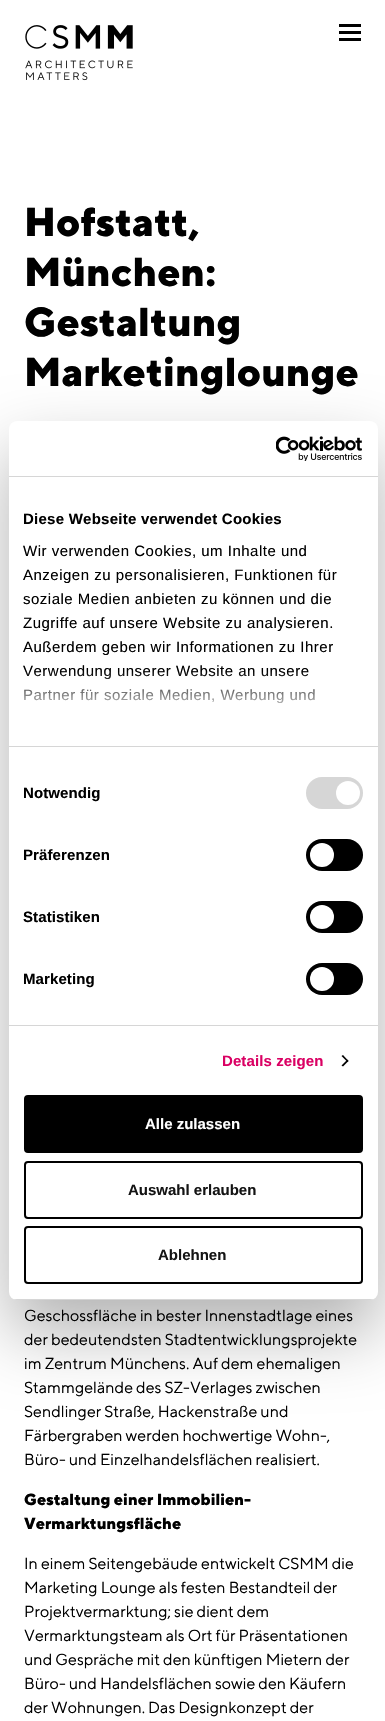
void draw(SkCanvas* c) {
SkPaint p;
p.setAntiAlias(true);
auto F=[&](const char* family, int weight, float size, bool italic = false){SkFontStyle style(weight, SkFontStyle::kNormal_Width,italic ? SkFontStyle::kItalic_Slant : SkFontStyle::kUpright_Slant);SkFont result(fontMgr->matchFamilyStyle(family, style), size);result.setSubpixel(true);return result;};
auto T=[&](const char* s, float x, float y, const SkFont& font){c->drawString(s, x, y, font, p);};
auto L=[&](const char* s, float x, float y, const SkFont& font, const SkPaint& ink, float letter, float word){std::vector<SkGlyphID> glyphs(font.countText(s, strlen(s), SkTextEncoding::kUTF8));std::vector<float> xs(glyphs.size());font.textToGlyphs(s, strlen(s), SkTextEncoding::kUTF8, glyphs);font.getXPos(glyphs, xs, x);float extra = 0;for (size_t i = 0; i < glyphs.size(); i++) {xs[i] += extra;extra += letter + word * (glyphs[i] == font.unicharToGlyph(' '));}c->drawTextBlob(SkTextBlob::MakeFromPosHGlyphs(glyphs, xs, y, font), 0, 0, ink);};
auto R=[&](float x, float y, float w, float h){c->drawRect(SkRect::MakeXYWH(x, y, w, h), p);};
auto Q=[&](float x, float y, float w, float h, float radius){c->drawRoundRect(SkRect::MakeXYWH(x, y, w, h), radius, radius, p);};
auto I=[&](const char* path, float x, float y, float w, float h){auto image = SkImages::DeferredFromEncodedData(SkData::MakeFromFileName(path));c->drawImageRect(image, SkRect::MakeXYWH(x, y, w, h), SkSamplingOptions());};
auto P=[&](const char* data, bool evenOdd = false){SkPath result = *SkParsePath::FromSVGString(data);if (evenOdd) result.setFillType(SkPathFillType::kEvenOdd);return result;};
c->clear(0xffffffff);
I("1.png",25,25,108,56);
p.setColor(0xff000000);
R(339,24,22,3);
R(339,31,22,3);
R(339,38,22,3);
auto f1 = F("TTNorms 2",400,40.25);
T("Hofstatt,",24,236,f1);
T("München:",24,286,f1);
T("Gestaltung",24,336,f1);
T("Marketinglounge",24,386,f1);
auto f2 = F("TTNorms",400,16);
T("Geschossfläche in bester Innenstadtlage eines",24,1321,f2);
T("der bedeutendsten Stadtentwicklungsprojekte",24,1345,f2);
T("im Zentrum Münchens. Auf dem ehemaligen",24,1369,f2);
T("Stammgelände des SZ-Verlages zwischen",24,1393,f2);
T("Sendlinger Straße, Hackenstraße und",24,1417,f2);
T("Färbergraben werden hochwertige Wohn-,",24,1441,f2);
T("Büro- und Einzelhandelsflächen realisiert.",24,1465,f2);
auto f3 = F("TTNorms 2",400,16);
T("Gestaltung einer Immobilien-",24,1505,f3);
T("Vermarktungsfläche",24,1529,f3);
T("In einem Seitengebäude entwickelt CSMM die",24,1569,f2);
T("Marketing Lounge als festen Bestandteil der",24,1593,f2);
T("Projektvermarktung; sie dient dem",24,1617,f2);
T("Vermarktungsteam als Ort für Präsentationen",24,1641,f2);
T("und Gespräche mit den künftigen Mietern der",24,1665,f2);
T("Büro- und Handelsflächen sowie den Käufern",24,1689,f2);
T("der Wohnungen. Das Designkonzept der",24,1713,f2);
p.setColor(0x4d000000);
p.setMaskFilter(SkMaskFilter::MakeBlur(kNormal_SkBlurStyle, 34));
c->drawRoundRect(SkRect::MakeXYWH(9,453,369,879),8,8,p);
p.setMaskFilter(nullptr);
p.setColor(0xffffffff);
Q(9,421,369,879,8);
p.setColor(0xffd6d6d6);
R(9,476,369,1);
I("2.png",276,436,86,25);
R(9,746,369,1);
auto f4 = F("Liberation Sans",700,15);
p.setColor(0xff000000);
L("Diese Webseite verwendet Cookies",23,524,f4,p,.25,0);
auto f5 = F("Liberation Sans",400,15);
L("Wir verwenden Cookies, um Inhalte und",23,556,f5,p,.5,0);
L("Anzeigen zu personalisieren, Funktionen für",23,580,f5,p,.5,0);
L("soziale Medien anbieten zu können und die",23,604,f5,p,.5,0);
L("Zugriffe auf unsere Website zu analysieren.",23,628,f5,p,.5,0);
L("Außerdem geben wir Informationen zu Ihrer",23,652,f5,p,.5,0);
L("Verwendung unserer Website an unsere",23,676,f5,p,.5,0);
L("Partner für soziale Medien, Werbung und",23,700,f5,p,.5,0);
{
const SkColor colors[] = {0xffffffff,0xccffffff,0x00ffffff};
const float stops[] = {0,.5,1};
const SkPoint ends[] = {{187,746}, {187,671}};
p.setShader(SkGradientShader::MakeLinear(ends, colors, stops, 3, SkTileMode::kClamp));
p.setAlpha(255);
}
R(24,672,291,32);
p.setShader(nullptr);
p.setColor(0xffd6d6d6);
R(9,1025,369,1);
p.setColor(0xff000000);
L("Notwendig",23,798,f4,p,.1,0);
p.setColor(0xffd6d6d6);
Q(306,777,57,32,16);
p.setColor(0xffffffff);
c->drawCircle(348,793,12,p);
p.setColor(0xff000000);
L("Präferenzen",23,860,f4,p,.1,0);
Q(306,839,57,32,16);
p.setColor(0xffffffff);
c->drawCircle(322,855,12,p);
p.setColor(0xff000000);
L("Statistiken",23,922,f4,p,.1,0);
Q(306,901,57,32,16);
p.setColor(0xffffffff);
c->drawCircle(322,917,12,p);
p.setColor(0xff000000);
L("Marketing",23,984,f4,p,.1,0);
Q(306,963,57,32,16);
p.setColor(0xffffffff);
c->drawCircle(322,979,12,p);
p.setColor(0xffda0063);
L("Details zeigen",222,1066,f4,p,.1,0);
p.setColor(0xff000000);
c->drawPath(P("M343 1055l5.5 6l-1 1l-6-6z"),p);
c->drawPath(P("M347.5 1059.5l1 1.5l-5.5 5.5l-1.5-1z"),p);
c->save();
c->clipPath(P("M17 421h353c4.5 0 8 3.5 8 8v863c0 4.5-3.5 8-8 8h-353c-4.5 0-8-3.5-8-8v-863c0-4.5 3.5-8 8-8z"),true);
p.setColor(0xffd6d6d6);
R(9,1299,369,1);
c->restore();
p.setColor(0xff000000);
c->drawRoundRect(SkRect::MakeXYWH(25,1096,337,56),3,3,p);
p.setStroke(true);
p.setStrokeWidth(2);
c->drawRoundRect(SkRect::MakeXYWH(25,1096,337,56),3,3,p);
p.setStroke(false);
p.setColor(0xffffffff);
T("Alle zulassen",145,1129,f4);
p.setStroke(true);
p.setColor(0xff000000);
c->drawRoundRect(SkRect::MakeXYWH(25,1162,337,56),3,3,p);
p.setStroke(false);
p.setColor(0xff141414);
T("Auswahl erlauben",128,1195,f4);
p.setStroke(true);
p.setColor(0xff000000);
c->drawRoundRect(SkRect::MakeXYWH(25,1227,337,56),3,3,p);
p.setStroke(false);
p.setColor(0xff141414);
T("Ablehnen",158,1260,f4);
}
